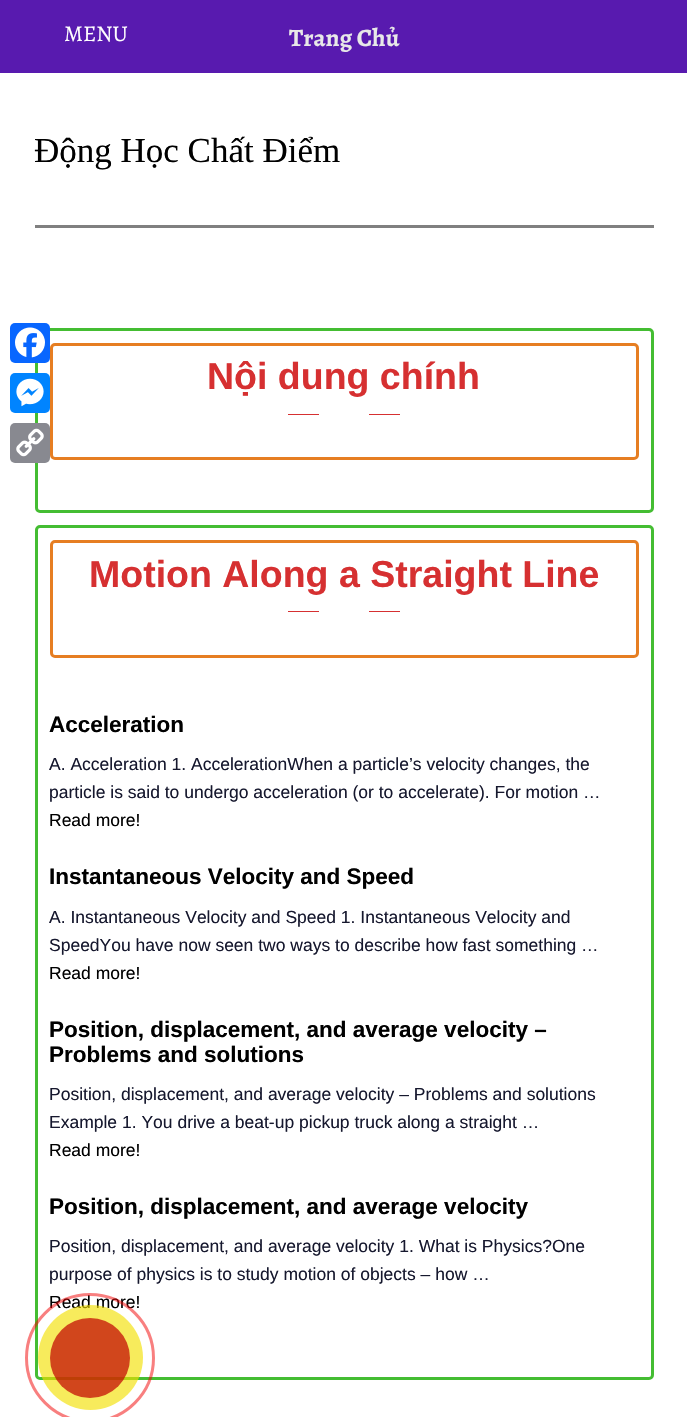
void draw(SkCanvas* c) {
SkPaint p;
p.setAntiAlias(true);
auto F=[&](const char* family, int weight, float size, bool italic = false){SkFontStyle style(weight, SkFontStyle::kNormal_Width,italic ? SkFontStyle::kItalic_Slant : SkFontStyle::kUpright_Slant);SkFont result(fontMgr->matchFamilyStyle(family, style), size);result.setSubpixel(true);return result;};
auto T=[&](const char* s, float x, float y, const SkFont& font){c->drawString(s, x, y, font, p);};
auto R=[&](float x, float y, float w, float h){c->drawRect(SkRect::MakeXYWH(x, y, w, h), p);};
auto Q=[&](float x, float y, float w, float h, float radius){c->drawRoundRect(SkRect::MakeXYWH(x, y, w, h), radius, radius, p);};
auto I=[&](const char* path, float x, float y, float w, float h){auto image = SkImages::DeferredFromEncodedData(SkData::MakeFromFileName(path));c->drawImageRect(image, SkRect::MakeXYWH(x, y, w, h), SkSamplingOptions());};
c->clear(0xffffffff);
p.setColor(0xff581aaf);
R(0,0,687,73);
auto f1 = F("Alegreya",400,22.5);
p.setColor(0xffffffff);
T("MENU",64,41,f1);
auto f2 = F("Alegreya",700,25);
p.setColor(0xffe8e8e8);
T("Trang Chủ",289,46,f2);
p.setStroke(true);
p.setStrokeWidth(3);
p.setColor(0xff44bd32);
c->drawRoundRect(SkRect::MakeXYWH(36.5,329.5,616,182),3.5,3.5,p);
p.setStroke(false);
p.setColor(0xff0866ff);
Q(10,323,40,40,5);
I("1.png",15,327,30,31);
p.setColor(0xff0084ff);
Q(10,373,40,40,5);
I("2.png",16,378,28,29);
p.setColor(0xff888990);
Q(10,423,40,40,5);
I("3.png",16,428,28,29);
auto f3 = F("Liberation Serif",400,35);
p.setColor(0xff000000);
T("Động Học Chất Điểm",34,162,f3);
p.setColor(0xff808080);
R(35,225,619,3);
p.setStroke(true);
p.setColor(0xffe67e22);
c->drawRoundRect(SkRect::MakeXYWH(51.5,344.5,586,114),3.5,3.5,p);
auto f4 = F("Liberation Sans",700,37.5);
p.setStroke(false);
p.setColor(0xffd63031);
T("Nội dung chính",207,389,f4);
R(288,414,31,1);
R(369,414,31,1);
p.setStroke(true);
p.setColor(0xff44bd32);
c->drawRoundRect(SkRect::MakeXYWH(36.5,526.5,616,852),3.5,3.5,p);
p.setColor(0xffe67e22);
c->drawRoundRect(SkRect::MakeXYWH(51.5,541.5,586,115),3.5,3.5,p);
p.setStroke(false);
p.setColor(0xffd63031);
T("Motion Along a Straight Line",89,587,f4);
R(288,611,31,1);
R(369,611,31,1);
auto f5 = F("Liberation Sans",700,22.5);
p.setColor(0xff000000);
T("Acceleration",49,732,f5);
auto f6 = F("Liberation Sans",400,17.5);
p.setColor(0xff16182e);
T("A. Acceleration 1. AccelerationWhen a particle’s velocity changes, the",49,770,f6);
T("particle is said to undergo acceleration (or to accelerate). For motion …",49,798,f6);
p.setColor(0xff000000);
T("Read more!",49,826,f6);
T("Instantaneous Velocity and Speed",49,884,f5);
p.setColor(0xff16182e);
T("A. Instantaneous Velocity and Speed 1. Instantaneous Velocity and",49,923,f6);
T("SpeedYou have now seen two ways to describe how fast something …",49,951,f6);
p.setColor(0xff000000);
T("Read more!",49,979,f6);
T("Position, displacement, and average velocity –",49,1037,f5);
T("Problems and solutions",49,1062,f5);
p.setColor(0xff16182e);
T("Position, displacement, and average velocity – Problems and solutions",49,1100,f6);
T("Example 1. You drive a beat-up pickup truck along a straight …",49,1128,f6);
p.setColor(0xff000000);
T("Read more!",49,1156,f6);
T("Position, displacement, and average velocity",49,1214,f5);
p.setColor(0xff16182e);
T("Position, displacement, and average velocity 1. What is Physics?One",49,1252,f6);
T("purpose of physics is to study motion of objects – how …",49,1280,f6);
p.setColor(0xff000000);
T("Read more!",49,1308,f6);
p.setStroke(true);
p.setColor(0x80f20000);
c->drawCircle(90,1358,63.5,p);
p.setStroke(false);
p.setColor(0xa3f2df00);
c->drawCircle(90.5,1357.5,52.5,p);
p.setColor(0xb3c00000);
c->drawCircle(90,1358,40,p);
}
